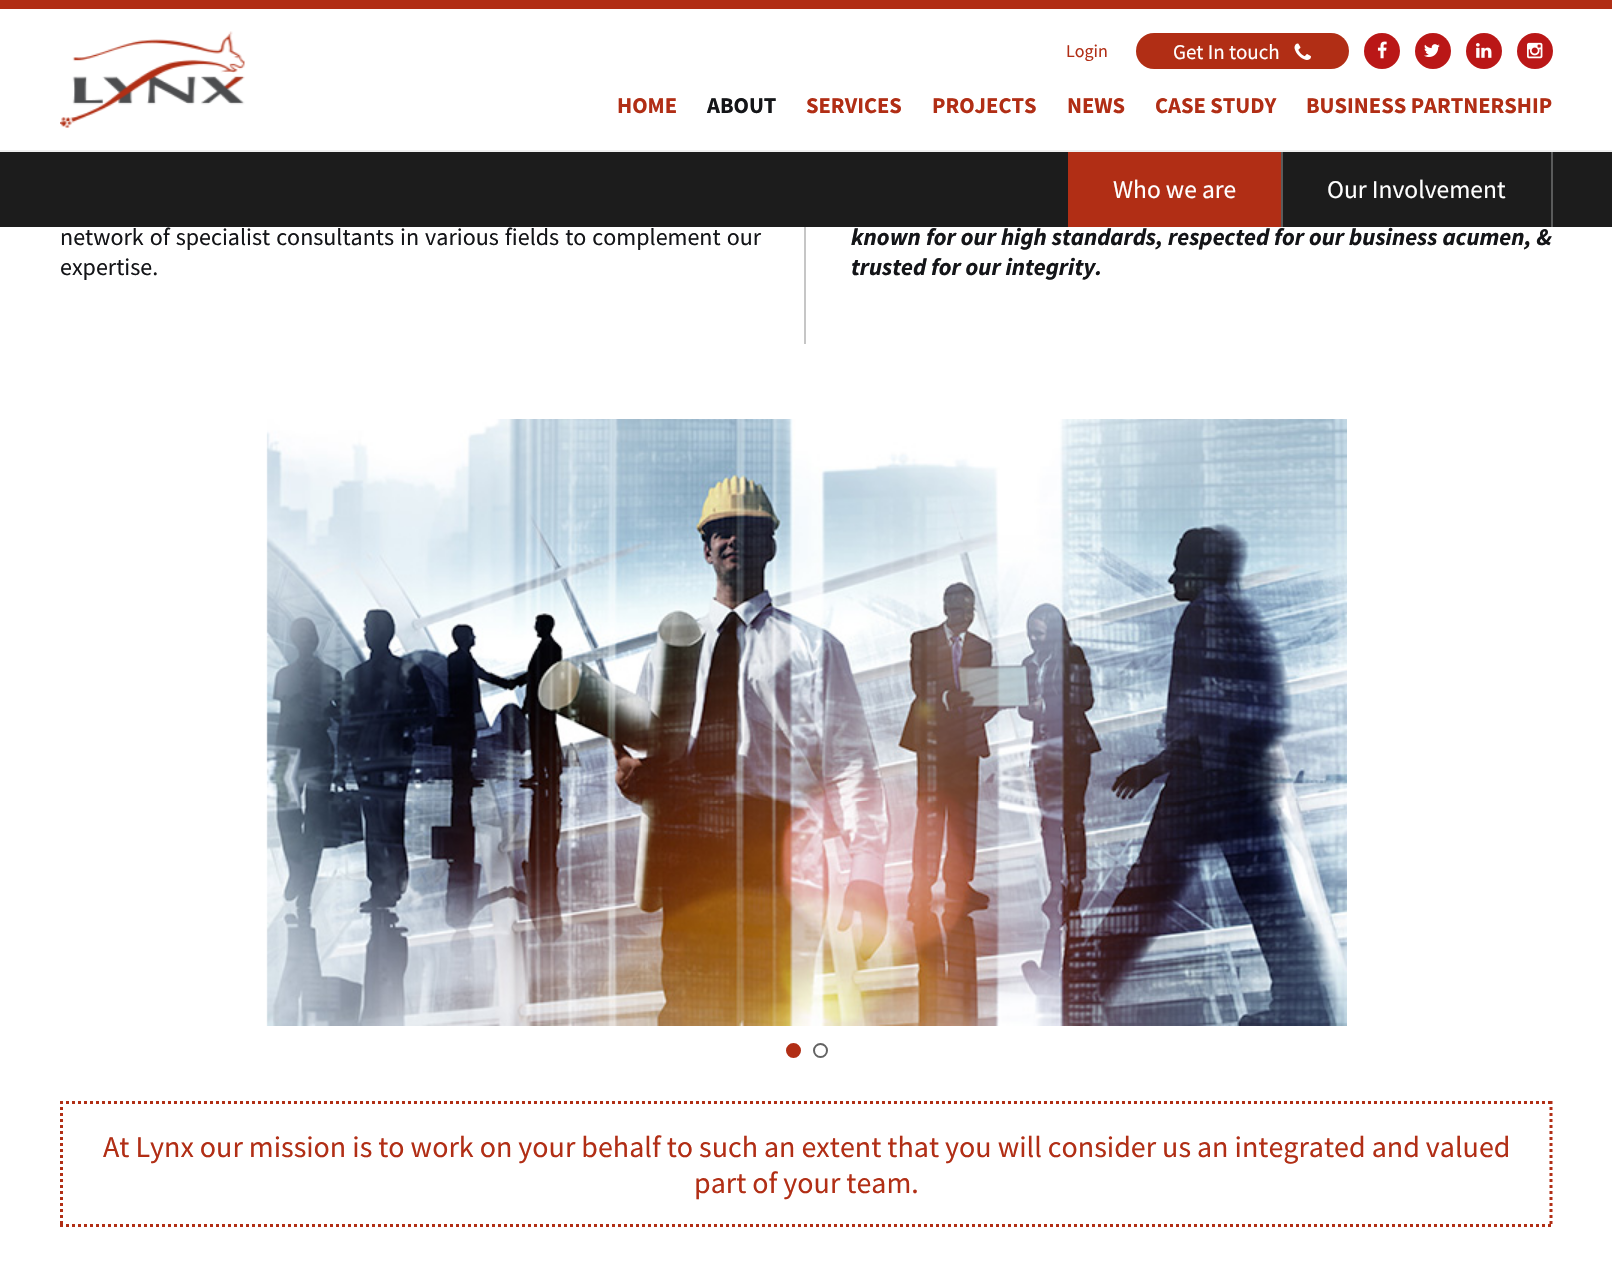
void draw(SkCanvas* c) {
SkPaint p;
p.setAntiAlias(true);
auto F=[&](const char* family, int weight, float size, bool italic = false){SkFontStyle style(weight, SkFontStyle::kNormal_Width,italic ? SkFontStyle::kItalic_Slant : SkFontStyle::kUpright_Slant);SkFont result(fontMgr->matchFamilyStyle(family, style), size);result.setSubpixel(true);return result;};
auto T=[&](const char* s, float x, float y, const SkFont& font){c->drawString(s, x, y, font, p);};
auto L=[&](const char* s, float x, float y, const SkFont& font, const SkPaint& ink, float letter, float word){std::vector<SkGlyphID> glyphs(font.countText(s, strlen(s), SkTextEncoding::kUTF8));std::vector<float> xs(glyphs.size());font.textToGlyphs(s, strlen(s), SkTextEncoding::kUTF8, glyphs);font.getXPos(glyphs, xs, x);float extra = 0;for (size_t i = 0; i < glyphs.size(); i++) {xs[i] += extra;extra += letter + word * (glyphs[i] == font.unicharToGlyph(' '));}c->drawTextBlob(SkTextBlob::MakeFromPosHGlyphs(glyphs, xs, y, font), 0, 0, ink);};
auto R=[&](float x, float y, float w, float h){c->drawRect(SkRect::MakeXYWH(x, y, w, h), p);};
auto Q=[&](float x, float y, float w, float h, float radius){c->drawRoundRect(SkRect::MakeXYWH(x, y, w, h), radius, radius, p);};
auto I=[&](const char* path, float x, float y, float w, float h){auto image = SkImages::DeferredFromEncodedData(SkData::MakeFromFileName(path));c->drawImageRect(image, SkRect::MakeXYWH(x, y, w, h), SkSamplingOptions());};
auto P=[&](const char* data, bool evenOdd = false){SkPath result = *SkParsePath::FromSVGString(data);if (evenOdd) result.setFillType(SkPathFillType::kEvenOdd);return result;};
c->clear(0xffffffff);
p.setColor(0xffb12e15);
R(0,0,1612,9);
p.setColor(0xffefefef);
R(0,150,1612,2);
I("1.png",60,31,185,97);
auto f1 = F("Source Sans Pro",400,18);
p.setColor(0xffb12e15);
T("Login",1066,57,f1);
Q(1136,33,213,36,18);
auto f2 = F("Source Sans Pro",400,21);
p.setColor(0xffffffff);
T("Get In touch",1173,59,f2);
I("2.png",1294,43,17,17);
p.setColor(0xffba1717);
c->drawCircle(1382,51,18,p);
I("3.png",1377,41,10,18);
c->drawCircle(1433,51,18,p);
I("4.png",1424,44,16,13);
c->drawCircle(1484,51,18,p);
I("5.png",1476,43,16,15);
c->drawCircle(1535,51,18,p);
I("6.png",1527,42,16,17);
auto f3 = F("Source Sans Pro",700,22.5);
p.setColor(0xffb12e15);
T("HOME",617,113,f3);
p.setColor(0xff141518);
T("ABOUT",707,113,f3);
p.setColor(0xffb12e15);
T("SERVICES",806,113,f3);
T("PROJECTS",932,113,f3);
T("NEWS",1067,113,f3);
T("CASE STUDY",1155,113,f3);
T("BUSINESS PARTNERSHIP",1306,113,f3);
p.setColor(0xff1c1c1c);
R(0,152,1612,75);
p.setColor(0xffb12e15);
R(1068,152,213,75);
p.setColor(0xff5a5b5b);
R(1281,152,2,75);
auto f4 = F("Source Sans Pro",400,25.5);
p.setColor(0xffffffff);
T("Who we are",1113,198,f4);
p.setColor(0xff5a5b5b);
R(1551,152,2,75);
p.setColor(0xffffffff);
T("Our Involvement",1327,198,f4);
auto f5 = F("Source Sans Pro",400,24);
p.setColor(0xff141518);
L("network of specialist consultants in various fields to complement our",60,245,f5,p,0,1.25);
T("expertise.",60,275,f5);
p.setColor(0xffc6c6c6);
R(804,227,2,117);
auto f6 = F("Source Sans Pro",700,24,true);
p.setColor(0xff141518);
L("known for our high standards, respected for our business acumen, &",851,245,f6,p,0,.25);
T("trusted for our integrity.",851,275,f6);
I("7.png",266,419,1081,607);
p.setColor(0xffb12e15);
c->drawCircle(793.5,1050.5,6.5,p);
p.setStroke(true);
p.setStrokeWidth(2);
c->drawCircle(793.5,1050.5,6.5,p);
p.setColor(0xff636363);
c->drawCircle(820.5,1050.5,6.5,p);
p.setStrokeWidth(3);
p.setColor(0xffb12e15);
p.setPathEffect(SkDashPathEffect::Make({{3,3}}, 0));
c->drawPath(P("M60 1102.5h1492.5"),p);
p.setPathEffect(nullptr);
p.setPathEffect(SkDashPathEffect::Make({{3,3}}, 0));
c->drawPath(P("M1551 1101v126"),p);
p.setPathEffect(nullptr);
p.setPathEffect(SkDashPathEffect::Make({{3,3}}, 0));
c->drawPath(P("M60 1225.5h1492.5"),p);
p.setPathEffect(nullptr);
p.setPathEffect(SkDashPathEffect::Make({{3,3}}, 0));
c->drawPath(P("M61.5 1101v126"),p);
p.setPathEffect(nullptr);
auto f7 = F("Source Sans Pro",400,30);
p.setStroke(false);
T("At Lynx our mission is to work on your behalf to such an extent that you will consider us an integrated and valued",103,1157,f7);
T("part of your team.",694,1193,f7);
}
